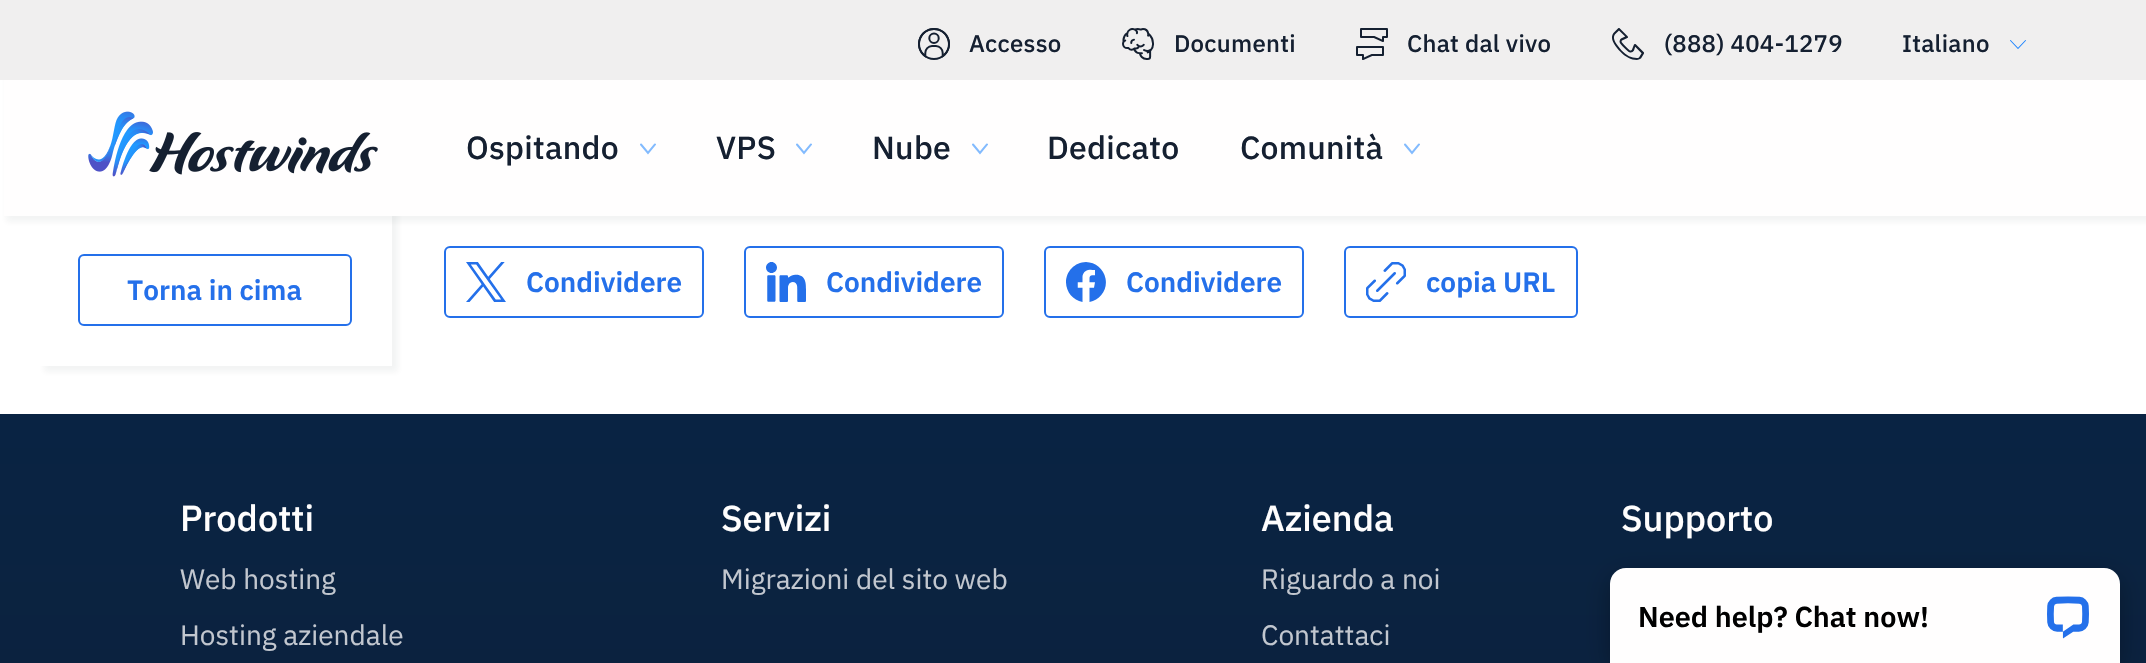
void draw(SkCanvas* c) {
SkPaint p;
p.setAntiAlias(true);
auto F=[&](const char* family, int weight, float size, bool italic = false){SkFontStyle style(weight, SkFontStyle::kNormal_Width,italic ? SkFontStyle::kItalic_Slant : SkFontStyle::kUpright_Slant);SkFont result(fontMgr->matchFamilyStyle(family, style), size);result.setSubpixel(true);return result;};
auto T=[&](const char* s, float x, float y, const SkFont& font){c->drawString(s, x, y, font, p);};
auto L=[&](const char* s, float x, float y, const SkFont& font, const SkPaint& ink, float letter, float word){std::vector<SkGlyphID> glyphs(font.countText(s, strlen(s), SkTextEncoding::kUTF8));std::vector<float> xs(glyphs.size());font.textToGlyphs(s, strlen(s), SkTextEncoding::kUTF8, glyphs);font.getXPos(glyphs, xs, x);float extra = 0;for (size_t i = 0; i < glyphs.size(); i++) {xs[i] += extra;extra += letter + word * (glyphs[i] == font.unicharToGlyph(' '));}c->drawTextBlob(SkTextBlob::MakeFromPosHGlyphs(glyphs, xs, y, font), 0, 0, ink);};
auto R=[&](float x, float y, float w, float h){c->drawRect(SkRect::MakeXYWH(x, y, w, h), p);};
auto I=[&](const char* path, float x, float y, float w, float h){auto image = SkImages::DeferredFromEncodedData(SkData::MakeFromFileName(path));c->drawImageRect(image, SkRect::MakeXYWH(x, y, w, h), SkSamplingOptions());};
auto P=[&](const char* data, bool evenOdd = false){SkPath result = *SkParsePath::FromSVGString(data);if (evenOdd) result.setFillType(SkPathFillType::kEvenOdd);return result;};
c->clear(0xffffffff);
p.setColor(0x0d152031);
p.setMaskFilter(SkMaskFilter::MakeBlur(kNormal_SkBlurStyle, 3));
c->drawRect(SkRect::MakeXYWH(6,6,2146,216),p);
p.setMaskFilter(nullptr);
c->save();
c->clipPath(P("M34 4h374v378h-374zm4 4h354v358h-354z",true),true);
p.setMaskFilter(SkMaskFilter::MakeBlur(kNormal_SkBlurStyle, 3));
c->drawRect(SkRect::MakeXYWH(44,14,354,358),p);
p.setMaskFilter(nullptr);
c->restore();
p.setColor(0xfffffefe);
R(4,80,2142,136);
p.setColor(0xfff0efef);
R(0,0,2146,80);
I("1.png",918,28,32,32);
auto f1 = F("IBM Plex Sans",500,24);
p.setColor(0xff152031);
L("Accesso",969,52,f1,p,.25,0);
I("2.png",1122,28,32,32);
L("Documenti",1174,52,f1,p,.25,0);
I("3.png",1356,28,32,32);
L("Chat dal vivo",1407,52,f1,p,.25,0);
I("4.png",1612,28,32,32);
L("(888) 404-1279",1664,52,f1,p,.25,0);
L("Italiano",1902,52,f1,p,.25,0);
I("5.png",2010,40,16,9);
I("6.png",88,111,290,66);
auto f2 = F("IBM Plex Sans",500,32);
L("Ospitando",466,159,f2,p,.25,0);
I("7.png",640,143,16,12);
L("VPS",716,159,f2,p,.25,0);
I("7.png",796,143,16,12);
L("Nube",872,159,f2,p,.25,0);
I("7.png",972,143,16,12);
L("Dedicato",1047,159,f2,p,.25,0);
L("Comunità",1240,159,f2,p,.25,0);
I("7.png",1404,143,16,12);
p.setStroke(true);
p.setStrokeWidth(2);
p.setColor(0xff2470ea);
c->drawRoundRect(SkRect::MakeXYWH(79,255,272,70),5,5,p);
auto f3 = F("IBM Plex Sans",600,28);
p.setStroke(false);
T("Torna in cima",127,300,f3);
p.setStroke(true);
c->drawRoundRect(SkRect::MakeXYWH(445,247,258,70),5,5,p);
I("8.png",466,262,40,40);
p.setStroke(false);
T("Condividere",526,292,f3);
p.setStroke(true);
c->drawRoundRect(SkRect::MakeXYWH(745,247,258,70),5,5,p);
I("9.png",766,262,40,40);
p.setStroke(false);
T("Condividere",826,292,f3);
p.setStroke(true);
c->drawRoundRect(SkRect::MakeXYWH(1045,247,258,70),5,5,p);
I("10.png",1066,262,40,40);
p.setStroke(false);
T("Condividere",1126,292,f3);
p.setStroke(true);
c->drawRoundRect(SkRect::MakeXYWH(1345,247,232,70),5,5,p);
I("11.png",1366,262,40,40);
p.setStroke(false);
T("copia URL",1426,292,f3);
{
const SkColor colors[] = {0xff092343,0xff152031};
const float stops[] = {0,1};
const SkPoint ends[] = {{1073,414}, {1073,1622}};
p.setShader(SkGradientShader::MakeLinear(ends, colors, stops, 2, SkTileMode::kClamp));
p.setAlpha(255);
}
R(0,414,2146,249);
auto f4 = F("IBM Plex Sans",500,36);
p.setShader(nullptr);
p.setColor(0xfffffefe);
T("Prodotti",180,531,f4);
auto f5 = F("IBM Plex Sans",400,28);
p.setColor(0xffc2c7cf);
T("Web hosting",180,589,f5);
T("Hosting aziendale",180,645,f5);
p.setColor(0xfffffefe);
T("Servizi",721,531,f4);
p.setColor(0xffc2c7cf);
T("Migrazioni del sito web",721,589,f5);
p.setColor(0xfffffefe);
T("Azienda",1261,531,f4);
p.setColor(0xffc2c7cf);
T("Riguardo a noi",1261,589,f5);
T("Contattaci",1261,645,f5);
p.setColor(0xfffffefe);
T("Supporto",1621,531,f4);
p.setColor(0x4d000000);
p.setMaskFilter(SkMaskFilter::MakeBlur(kNormal_SkBlurStyle, 12));
c->drawRoundRect(SkRect::MakeXYWH(1610,576,510,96),16,16,p);
p.setMaskFilter(nullptr);
p.setColor(0xfffffefe);
c->drawPath(P("M1626 568h478c9 0 16 7 16 16v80h-510v-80c0-9 7-16 16-16z"),p);
auto f6 = F("IBM Plex Sans",600,28.75);
p.setColor(0xff000000);
T("Need help? Chat now!",1638,627,f6);
I("12.png",2047,596,42,43);
}
